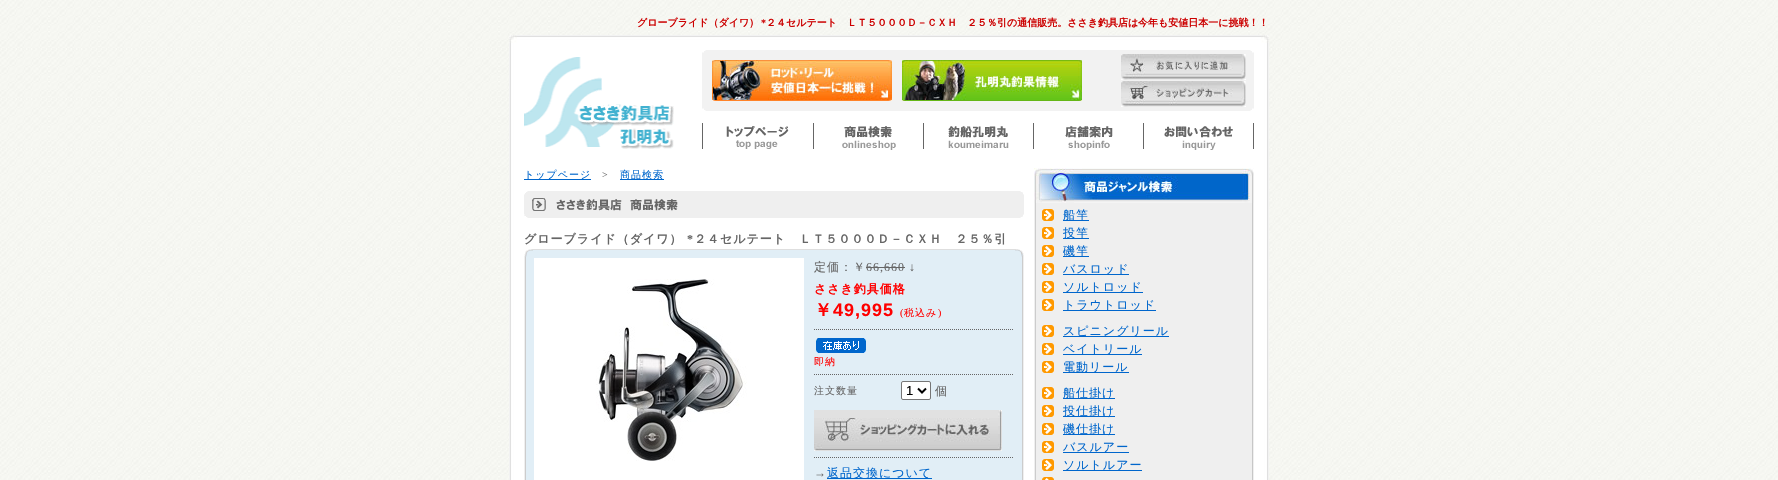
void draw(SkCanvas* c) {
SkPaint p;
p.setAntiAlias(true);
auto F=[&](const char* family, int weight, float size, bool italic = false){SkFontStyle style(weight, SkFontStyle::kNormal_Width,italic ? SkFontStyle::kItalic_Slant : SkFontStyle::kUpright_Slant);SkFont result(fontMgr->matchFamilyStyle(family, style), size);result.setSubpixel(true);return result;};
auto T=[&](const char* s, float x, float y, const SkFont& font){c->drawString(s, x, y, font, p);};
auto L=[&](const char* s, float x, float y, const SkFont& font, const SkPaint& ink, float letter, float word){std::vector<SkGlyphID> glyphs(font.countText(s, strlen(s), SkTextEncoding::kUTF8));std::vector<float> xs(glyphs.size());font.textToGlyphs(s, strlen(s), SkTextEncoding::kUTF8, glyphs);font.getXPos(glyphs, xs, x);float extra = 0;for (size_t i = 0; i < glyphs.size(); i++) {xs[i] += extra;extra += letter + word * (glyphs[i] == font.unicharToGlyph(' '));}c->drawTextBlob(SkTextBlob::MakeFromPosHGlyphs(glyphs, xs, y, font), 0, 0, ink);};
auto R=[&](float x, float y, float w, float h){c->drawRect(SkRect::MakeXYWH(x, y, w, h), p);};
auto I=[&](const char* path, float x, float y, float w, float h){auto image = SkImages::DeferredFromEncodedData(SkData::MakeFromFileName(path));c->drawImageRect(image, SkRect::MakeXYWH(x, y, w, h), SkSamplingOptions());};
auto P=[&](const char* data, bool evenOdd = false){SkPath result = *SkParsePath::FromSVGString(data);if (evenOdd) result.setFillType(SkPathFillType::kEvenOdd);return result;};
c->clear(0xffffffff);
I("1.png",0,0,1778,480);
auto f1 = F("WenQuanYi Zen Hei",700,10);
p.setColor(0xffcc0000);
T("グローブライド（ダイワ）",637,26,f1);
auto f2 = F("Liberation Serif",700,10);
T("*",761,26,f2);
T("２４セルテート　ＬＴ５０００Ｄ－ＣＸＨ　２５％引の通信販売。ささき釣具店は今年も安値日本一に挑戦！！",766,26,f1);
I("2.png",509,35,760,15);
I("3.png",509,50,760,100);
I("4.png",524,57,150,92);
I("5.png",702,50,552,61);
I("6.png",712,60,180,41);
I("7.png",902,60,180,41);
I("8.png",1121,54,125,26);
I("9.png",1121,81,125,26);
p.setColor(0xff666666);
R(702,123,1,26);
I("10.png",726,126,63,23);
R(813,123,1,26);
I("11.png",842,126,54,24);
R(923,123,1,26);
I("12.png",948,126,61,22);
R(1033,123,1,26);
I("13.png",1065,126,48,24);
R(1143,123,1,26);
I("14.png",1164,126,69,24);
R(1253,123,1,26);
I("15.png",509,150,760,18);
I("16.png",509,168,760,312);
p.setColor(0xff0066cc);
R(524,179,67,1);
auto f3 = F("WenQuanYi Zen Hei",500,10);
L("トップページ",524,178,f3,p,1,0);
auto f4 = F("Liberation Serif",400,10);
p.setColor(0xff666666);
L(">",602,178,f4,p,1,0);
p.setColor(0xff0066cc);
R(620,179,44,1);
L("商品検索",620,178,f3,p,1,0);
I("17.png",524,191,500,27);
auto f5 = F("WenQuanYi Zen Hei",700,12);
p.setColor(0xff666666);
L("グローブライド（ダイワ）",524,243,f5,p,1,0);
auto f6 = F("Liberation Serif",700,12);
L("*",687,243,f6,p,1,0);
L("２４セルテート　ＬＴ５０００Ｄ－ＣＸＨ　２５％引",694,243,f5,p,1,0);
I("18.png",524,249,500,9);
I("19.png",524,258,500,222);
p.setColor(0xffffffff);
R(534,258,270,222);
I("20.png",596,279,151,182);
auto f7 = F("WenQuanYi Zen Hei",500,12);
p.setColor(0xff666666);
L("定価：￥",814,271,f7,p,1,0);
auto f8 = F("Liberation Serif",400,12);
L("66,660 ↓",866,271,f8,p,1,0);
R(866,267,39,1);
p.setColor(0xffff0000);
L("ささき釣具価格",814,293,f5,p,1,0);
auto f9 = F("WenQuanYi Zen Hei",700,18);
L("￥",814,316,f9,p,1,0);
auto f10 = F("Liberation Sans",700,18);
L("49,995",833,316,f10,p,1,0);
L("(",900,316,f4,p,1,0);
L("税込み",904,316,f3,p,1,0);
L(")",938,316,f4,p,1,0);
I("21.png",814,329,199,1);
I("22.png",816,338,50,15);
L("即納",814,365,f3,p,1,0);
I("21.png",814,374,199,1);
p.setColor(0xff666666);
L("注文数量",814,394,f3,p,1,0);
p.setColor(0xffffffff);
c->drawRoundRect(SkRect::MakeXYWH(901.5,381.5,29,18),1.5,1.5,p);
p.setStroke(true);
p.setStrokeWidth(1);
p.setColor(0xff767676);
c->drawRoundRect(SkRect::MakeXYWH(901.5,381.5,29,18),1.5,1.5,p);
p.setStrokeWidth(2);
p.setColor(0xff000000);
c->drawPath(P("M918 388.5l4 4l4-4"),p);
auto f11 = F("Liberation Sans",400,13);
p.setStroke(false);
T("1",906,395,f11);
p.setColor(0xff666666);
L("個",935,395,f7,p,1,0);
I("23.png",814,410,188,41);
I("21.png",814,457,199,1);
L("→",814,477,f8,p,1,0);
p.setColor(0xff0066cc);
R(827,478,105,1);
L("返品交換について",827,477,f7,p,1,0);
I("24.png",1034,168,220,35);
I("25.png",1034,203,220,3);
I("26.png",1034,206,220,18);
R(1063,220,26,1);
L("船竿",1063,219,f7,p,1,0);
I("26.png",1034,224,220,18);
R(1063,238,26,1);
L("投竿",1063,237,f7,p,1,0);
I("26.png",1034,242,220,18);
R(1063,256,26,1);
L("磯竿",1063,255,f7,p,1,0);
I("26.png",1034,260,220,18);
R(1063,274,66,1);
L("バスロッド",1063,273,f7,p,1,0);
I("26.png",1034,278,220,18);
R(1063,292,80,1);
L("ソルトロッド",1063,291,f7,p,1,0);
I("26.png",1034,296,220,18);
R(1063,310,93,1);
L("トラウトロッド",1063,309,f7,p,1,0);
I("27.png",1034,314,220,8);
I("26.png",1034,322,220,18);
R(1063,336,106,1);
L("スピニングリール",1063,335,f7,p,1,0);
I("26.png",1034,340,220,18);
R(1063,354,79,1);
L("ベイトリール",1063,353,f7,p,1,0);
I("26.png",1034,358,220,18);
R(1063,372,66,1);
L("電動リール",1063,371,f7,p,1,0);
I("27.png",1034,376,220,8);
I("26.png",1034,384,220,18);
R(1063,398,52,1);
L("船仕掛け",1063,397,f7,p,1,0);
I("26.png",1034,402,220,18);
R(1063,416,52,1);
L("投仕掛け",1063,415,f7,p,1,0);
I("26.png",1034,420,220,18);
R(1063,434,52,1);
L("磯仕掛け",1063,433,f7,p,1,0);
I("26.png",1034,438,220,18);
L("バスルアー",1063,451,f7,p,1,0);
R(1063,452,66,1);
I("26.png",1034,456,220,18);
R(1063,470,79,1);
L("ソルトルアー",1063,469,f7,p,1,0);
I("28.png",1034,474,220,6);
}
